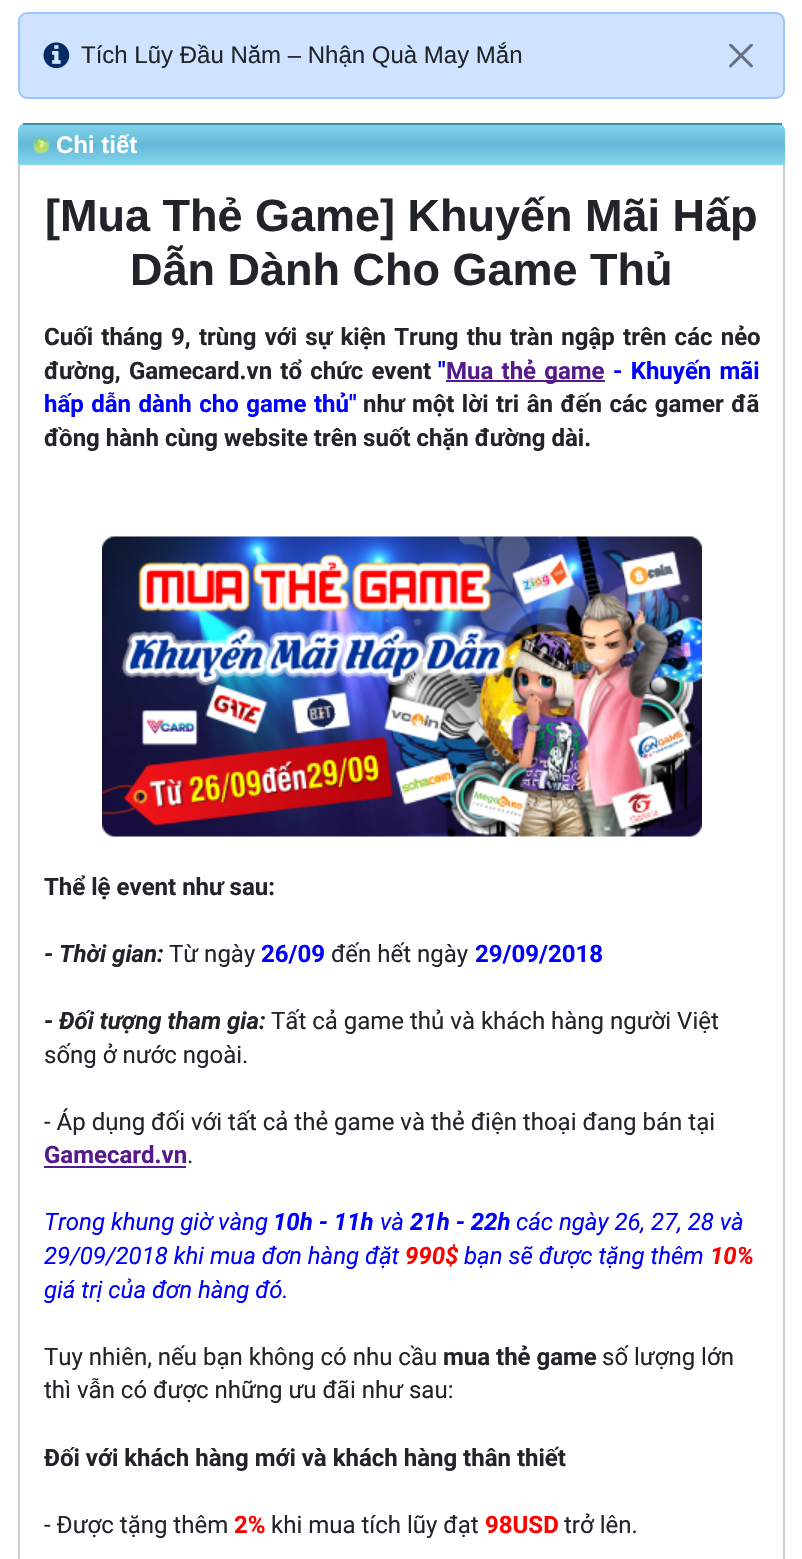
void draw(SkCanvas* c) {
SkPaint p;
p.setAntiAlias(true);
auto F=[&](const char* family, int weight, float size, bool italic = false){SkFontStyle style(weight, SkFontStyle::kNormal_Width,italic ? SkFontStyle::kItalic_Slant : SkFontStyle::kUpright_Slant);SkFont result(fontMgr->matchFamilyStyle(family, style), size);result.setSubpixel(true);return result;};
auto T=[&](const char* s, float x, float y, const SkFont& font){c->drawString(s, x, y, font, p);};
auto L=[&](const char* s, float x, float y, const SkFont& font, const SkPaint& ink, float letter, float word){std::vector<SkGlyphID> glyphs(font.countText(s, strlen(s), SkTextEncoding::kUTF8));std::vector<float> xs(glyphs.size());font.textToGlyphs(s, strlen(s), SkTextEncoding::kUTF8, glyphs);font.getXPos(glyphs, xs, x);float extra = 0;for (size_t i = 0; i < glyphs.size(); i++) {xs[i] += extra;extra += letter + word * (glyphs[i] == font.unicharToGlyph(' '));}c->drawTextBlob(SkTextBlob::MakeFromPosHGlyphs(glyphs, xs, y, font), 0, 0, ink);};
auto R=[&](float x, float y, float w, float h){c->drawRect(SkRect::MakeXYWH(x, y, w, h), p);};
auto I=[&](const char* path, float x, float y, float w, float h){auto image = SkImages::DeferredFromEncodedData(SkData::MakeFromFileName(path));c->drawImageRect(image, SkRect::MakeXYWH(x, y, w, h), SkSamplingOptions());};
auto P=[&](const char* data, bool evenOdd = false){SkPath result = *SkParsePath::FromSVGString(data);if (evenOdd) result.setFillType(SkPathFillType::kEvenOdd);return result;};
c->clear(0xffffffff);
p.setColor(0xffcfe2ff);
c->drawRoundRect(SkRect::MakeXYWH(19,13,765,85),8,8,p);
p.setStroke(true);
p.setStrokeWidth(2);
p.setColor(0xff9ec5fe);
c->drawRoundRect(SkRect::MakeXYWH(19,13,765,85),8,8,p);
I("1.png",43,42,27,27);
auto f1 = F("Liberation Sans",400,24);
p.setStroke(false);
p.setColor(0xff212529);
T("Tích Lũy Đầu Năm – Nhận Quà May Mắn",81,63,f1);
I("2.png",729,44,24,24);
c->save();
c->clipPath(P("M26 123h751c4.5 0 8 3.5 8 8v34h-767v-34c0-4.5 3.5-8 8-8z"),true);
{
const SkColor colors[] = {0xff84d4ed,0xff63b9d7,0xff84d4ed};
const float stops[] = {0,.5,1};
const SkPoint ends[] = {{401,84}, {401,125}};
p.setShader(SkGradientShader::MakeLinear(ends, colors, stops, 3, SkTileMode::kClamp));
p.setAlpha(255);
}
R(18,123,767,2);
{
const SkColor colors[] = {0xff84d4ed,0xff63b9d7,0xff84d4ed};
const float stops[] = {0,.5,1};
const SkPoint ends[] = {{401,124}, {401,165}};
p.setShader(SkGradientShader::MakeLinear(ends, colors, stops, 3, SkTileMode::kClamp));
p.setAlpha(255);
}
R(18,125,767,40);
c->restore();
p.setShader(nullptr);
p.setColor(0xff4090aa);
R(23,123,759,2);
I("3.png",33,137,17,17);
auto f2 = F("Liberation Sans",700,24);
p.setColor(0xffffffff);
T("Chi tiết",56,153,f2);
p.setColor(0xffcecece);
R(783,165,2,1394);
R(18,165,2,1394);
auto f3 = F("Liberation Sans",700,45);
p.setColor(0xff212529);
T("[Mua Thẻ Game] Khuyến Mãi Hấp",45,231,f3);
T("Dẫn Dành Cho Game Thủ",130,285,f3);
auto f4 = F("Roboto",700,24);
L("Cuối tháng 9, trùng với sự kiện Trung thu tràn ngập trên các nẻo",44,345,f4,p,0,2.25);
L("đường, Gamecard.vn tổ chức event",44,379,f4,p,0,2.25);
p.setColor(0xff0000ff);
T("\"",438,379,f4);
p.setColor(0xff551a8b);
R(446,380,159,2);
L("Mua thẻ game",446,379,f4,p,0,2.25);
p.setColor(0xff0000ff);
L("- Khuyến mãi",613,379,f4,p,0,2.25);
L("hấp dẫn dành cho game thủ\"",44,412,f4,p,0,1.5);
p.setColor(0xff212529);
L("như một lời tri ân đến các gamer đã",363,412,f4,p,0,1.5);
T("đồng hành cùng website trên suốt chặn đường dài.",44,446,f4);
I("4.png",102,536,600,301);
T("Thể lệ event như sau:",44,895,f4);
auto f5 = F("Roboto",700,24,true);
T("- Thời gian:",44,962,f5);
auto f6 = F("Roboto",400,24);
T("Từ ngày",169,962,f6);
p.setColor(0xff0000ff);
T("26/09",261,962,f4);
p.setColor(0xff212529);
T("đến hết ngày",331,962,f6);
p.setColor(0xff0000ff);
T("29/09/2018",475,962,f4);
p.setColor(0xff212529);
T("- Đối tượng tham gia:",44,1029,f5);
T("Tất cả game thủ và khách hàng người Việt",271,1029,f6);
T("sống ở nước ngoài.",44,1063,f6);
T("- Áp dụng đối với tất cả thẻ game và thẻ điện thoại đang bán tại",44,1130,f6);
p.setColor(0xff551a8b);
T("Gamecard.vn",44,1163,f4);
R(44,1166,142,2);
p.setColor(0xff212529);
T(".",187,1163,f6);
auto f7 = F("Roboto",400,24,true);
p.setColor(0xff0000ff);
T("Trong khung giờ vàng",44,1230,f7);
T("10h - 11h",273,1230,f5);
T("và",380,1230,f7);
T("21h - 22h",410,1230,f5);
T("các ngày 26, 27, 28 và",516,1230,f7);
T("29/09/2018 khi mua đơn hàng đặt",44,1264,f7);
p.setColor(0xffff0000);
T("990$",405,1264,f5);
p.setColor(0xff0000ff);
T("bạn sẽ được tặng thêm",464,1264,f7);
p.setColor(0xffff0000);
T("10%",710,1264,f5);
p.setColor(0xff0000ff);
T("giá trị của đơn hàng đó.",44,1298,f7);
p.setColor(0xff212529);
T("Tuy nhiên, nếu bạn không có nhu cầu",44,1365,f6);
T("mua thẻ game",443,1365,f4);
T("số lượng lớn",602,1365,f6);
T("thì vẫn có được những ưu đãi như sau:",44,1398,f6);
T("Đối với khách hàng mới và khách hàng thân thiết",44,1466,f4);
T("- Được tặng thêm",44,1533,f6);
p.setColor(0xffff0000);
T("2%",234,1533,f4);
p.setColor(0xff212529);
T("khi mua tích lũy đạt",271,1533,f6);
p.setColor(0xffff0000);
T("98USD",485,1533,f4);
p.setColor(0xff212529);
T("trở lên.",564,1533,f6);
}
